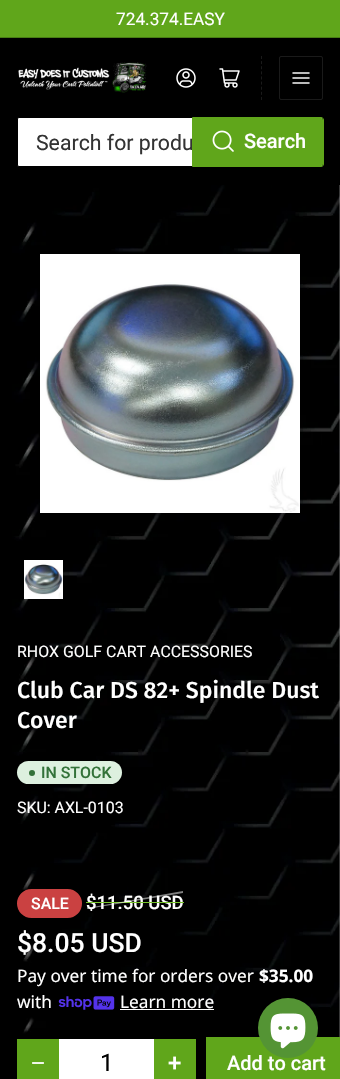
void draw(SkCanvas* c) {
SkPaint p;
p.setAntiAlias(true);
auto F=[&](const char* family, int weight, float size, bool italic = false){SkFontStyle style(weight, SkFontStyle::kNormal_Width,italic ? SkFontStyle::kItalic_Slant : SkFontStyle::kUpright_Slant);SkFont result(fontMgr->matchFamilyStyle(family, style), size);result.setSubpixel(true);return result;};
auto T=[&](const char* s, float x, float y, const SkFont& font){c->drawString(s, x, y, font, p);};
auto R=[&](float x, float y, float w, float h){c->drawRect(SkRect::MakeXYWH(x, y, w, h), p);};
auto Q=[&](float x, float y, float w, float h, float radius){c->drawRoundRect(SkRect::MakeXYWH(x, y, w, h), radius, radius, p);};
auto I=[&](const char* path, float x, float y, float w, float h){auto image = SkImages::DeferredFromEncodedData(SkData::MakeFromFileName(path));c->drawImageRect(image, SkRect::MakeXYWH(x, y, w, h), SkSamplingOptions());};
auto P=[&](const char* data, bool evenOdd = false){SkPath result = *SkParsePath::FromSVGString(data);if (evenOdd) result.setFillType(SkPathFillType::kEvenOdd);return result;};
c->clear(0xffffffff);
I("1.png",0,185,340,894);
p.setColor(0xff60a61b);
R(0,0,340,37);
p.setColor(0xff487d14);
R(0,37,340,1);
auto f1 = F("Roboto",400,17.25);
p.setColor(0xffffffff);
T("724.374.EASY",116,25,f1);
p.setColor(0xff000000);
R(0,38,340,147);
I("2.png",18,62,129,31);
I("3.png",176,68,20,20);
I("4.png",219,68,21,20);
p.setStroke(true);
p.setStrokeWidth(1);
p.setColor(0xff1a1a1a);
p.setPathEffect(SkDashPathEffect::Make({{3,2.12f}}, 0));
c->drawPath(P("M261.5 56v44"),p);
p.setPathEffect(nullptr);
c->drawRoundRect(SkRect::MakeXYWH(279.5,56.5,43,43),1.5,1.5,p);
I("5.png",292,72,18,12);
p.setStroke(false);
p.setColor(0xffffffff);
c->drawRoundRect(SkRect::MakeXYWH(17.5,117.5,305,49),1.5,1.5,p);
p.setStroke(true);
p.setColor(0xff000000);
c->drawRoundRect(SkRect::MakeXYWH(17.5,117.5,305,49),1.5,1.5,p);
auto f2 = F("Roboto",400,21.25);
p.setStroke(false);
p.setColor(0xff333333);
T("Search for produ",36,150,f2);
p.setStroke(true);
p.setColor(0xff60a61b);
c->drawPath(P("M192.5 117.5h128.5c1.5 0 2.5 1 2.5 2.5v44c0 1.5-1 2.5-2.5 2.5h-128.5z"),p);
p.setStroke(false);
c->drawPath(P("M193 118h128c1 0 2 1 2 2v44c0 1-1 2-2 2h-128z"),p);
I("6.png",212,130,22,22);
auto f3 = F("Roboto",500,20);
p.setColor(0xffffffff);
T("Search",244,148,f3);
I("7.png",40,254,260,259);
I("8.png",24,560,39,39);
auto f4 = F("Roboto",400,15.9);
T("RHOX GOLF CART ACCESSORIES",17,657,f4);
auto f5 = F("Fira Sans",500,23);
T("Club Car DS 82+ Spindle Dust",17,698,f5);
T("Cover",17,728,f5);
p.setColor(0xffddf0df);
Q(17,761,105,23,11.5);
p.setColor(0xff337239);
c->drawCircle(32,773,3,p);
auto f6 = F("Roboto",500,15.9);
T("IN STOCK",41,778,f6);
p.setColor(0xffffffff);
T("SKU: AXL-0103",17,813,f4);
p.setColor(0xffca4141);
c->drawRoundRect(SkRect::MakeXYWH(18,890,63,27),13.5,13.5,p);
p.setStroke(true);
p.setStrokeWidth(2);
c->drawRoundRect(SkRect::MakeXYWH(18,890,63,27),13.5,13.5,p);
p.setStroke(false);
p.setColor(0xffffffff);
T("SALE",31,909,f6);
auto f7 = F("Roboto",500,18.5);
T("$11.50 USD",86,909,f7);
p.setColor(0xff78c52b);
R(86,902,98,1);
p.setColor(0x80ffffff);
c->drawPath(P("M87 908l96-17v2l-96 16z"),p);
auto f8 = F("Roboto",500,26.5);
p.setColor(0xffffffff);
T("$8.05 USD",17,952,f8);
auto f9 = F("Noto Sans",400,17.25);
T("Pay over time for orders over",17,982,f9);
auto f10 = F("Noto Sans",700,17.25);
T("$35.00",259,982,f10);
T("with",17,1008,f9);
I("9.png",58,996,57,14);
T("Learn more",120,1008,f9);
R(120,1009,94,1);
p.setColor(0xff60a61b);
R(17,1039,42,40);
auto f11 = F("Liberation Sans",400,24);
p.setColor(0xffffffff);
T("−",31,1071,f11);
R(59,1039,95,40);
auto f12 = F("Roboto",400,24);
p.setColor(0xff000000);
T("1",100,1071,f12);
p.setColor(0xff60a61b);
R(154,1039,42,40);
auto f13 = F("Roboto",500,24);
p.setColor(0xffffffff);
T("+",168,1071,f13);
p.setStroke(true);
p.setStrokeWidth(1);
p.setColor(0xff60a61b);
c->drawRect(SkRect::MakeXYWH(206.5,1037.5,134,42),p);
p.setStroke(false);
R(207,1038,133,41);
p.setColor(0xffffffff);
T("Add to cart",227,1070,f3);
p.setColor(0xff549434);
c->drawCircle(288,1028,30,p);
I("10.png",270,1013,36,36);
}
